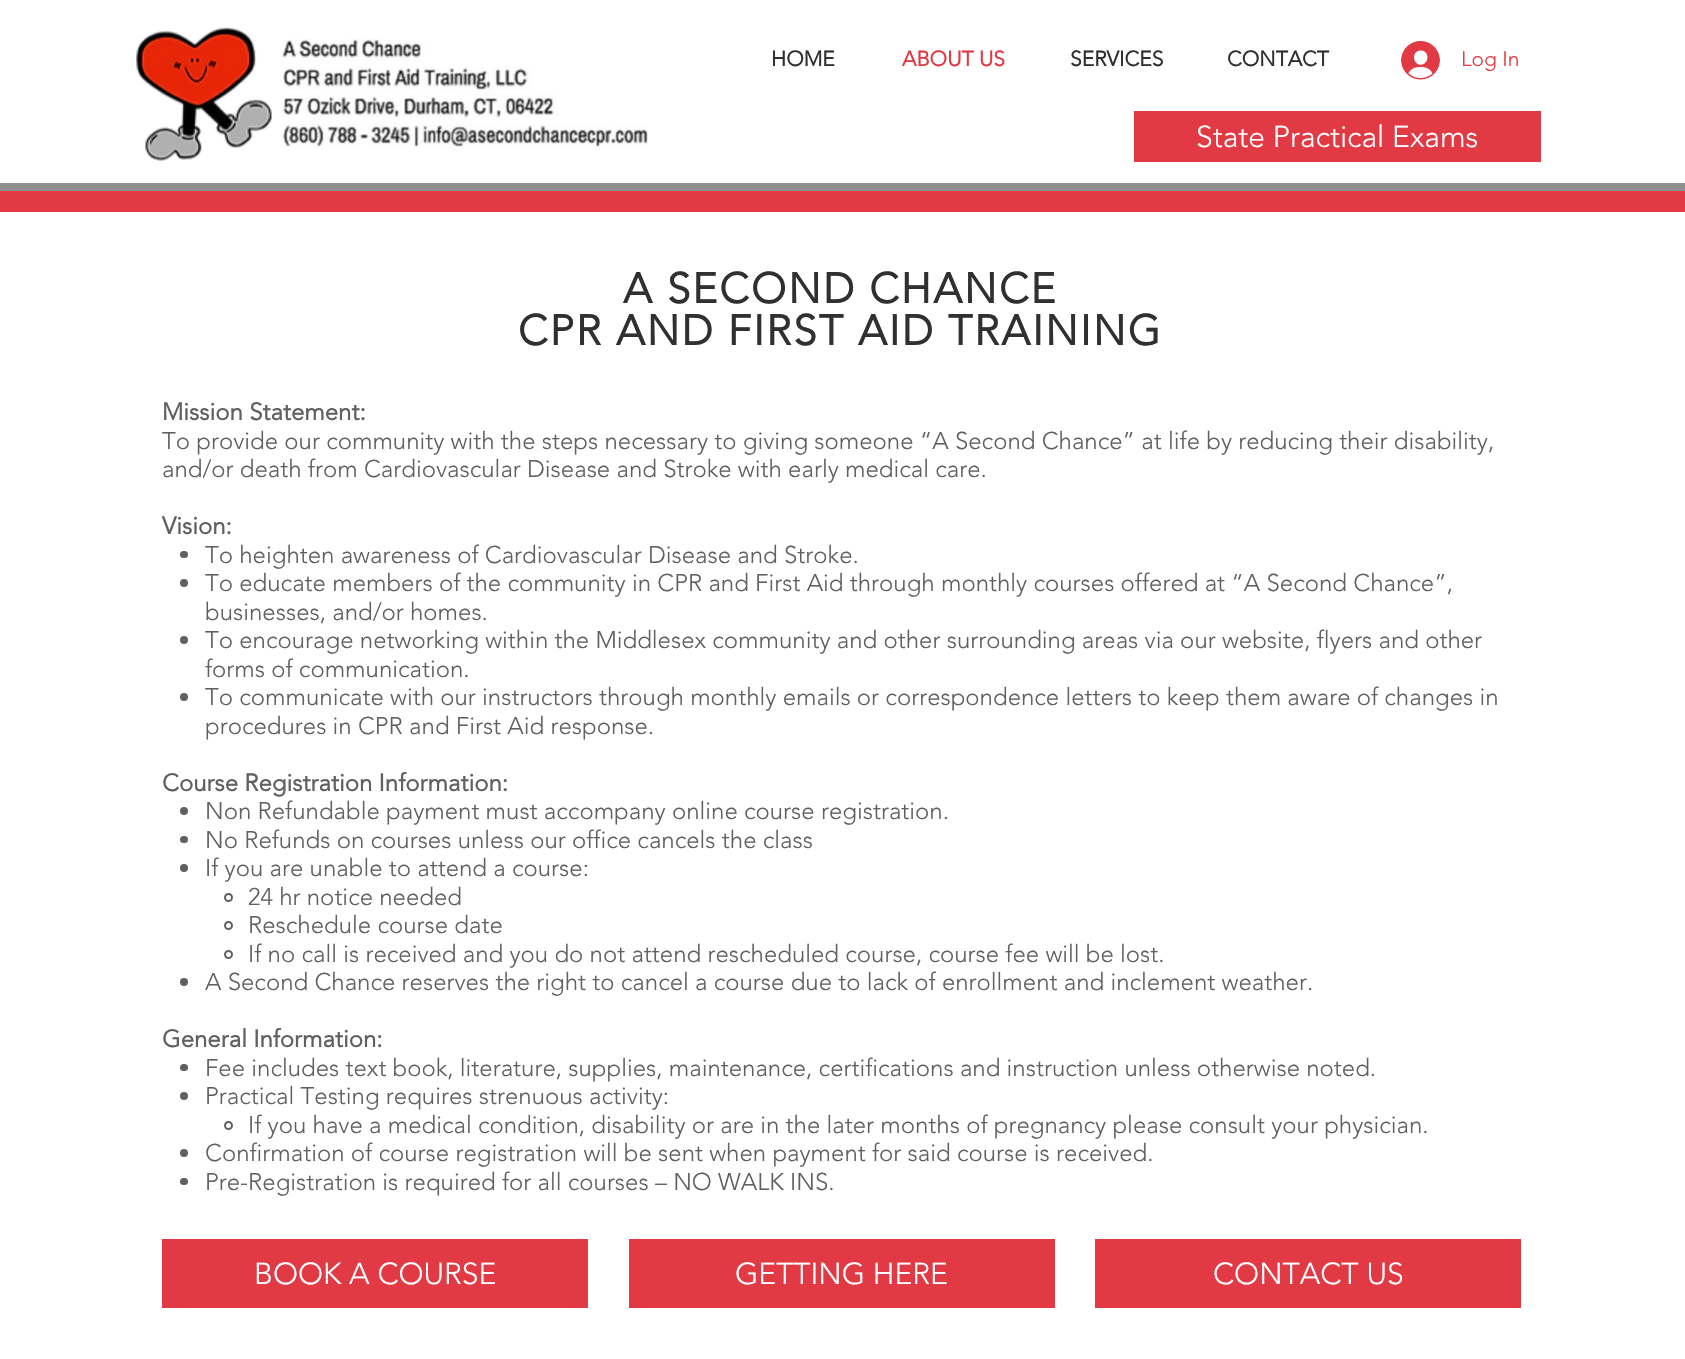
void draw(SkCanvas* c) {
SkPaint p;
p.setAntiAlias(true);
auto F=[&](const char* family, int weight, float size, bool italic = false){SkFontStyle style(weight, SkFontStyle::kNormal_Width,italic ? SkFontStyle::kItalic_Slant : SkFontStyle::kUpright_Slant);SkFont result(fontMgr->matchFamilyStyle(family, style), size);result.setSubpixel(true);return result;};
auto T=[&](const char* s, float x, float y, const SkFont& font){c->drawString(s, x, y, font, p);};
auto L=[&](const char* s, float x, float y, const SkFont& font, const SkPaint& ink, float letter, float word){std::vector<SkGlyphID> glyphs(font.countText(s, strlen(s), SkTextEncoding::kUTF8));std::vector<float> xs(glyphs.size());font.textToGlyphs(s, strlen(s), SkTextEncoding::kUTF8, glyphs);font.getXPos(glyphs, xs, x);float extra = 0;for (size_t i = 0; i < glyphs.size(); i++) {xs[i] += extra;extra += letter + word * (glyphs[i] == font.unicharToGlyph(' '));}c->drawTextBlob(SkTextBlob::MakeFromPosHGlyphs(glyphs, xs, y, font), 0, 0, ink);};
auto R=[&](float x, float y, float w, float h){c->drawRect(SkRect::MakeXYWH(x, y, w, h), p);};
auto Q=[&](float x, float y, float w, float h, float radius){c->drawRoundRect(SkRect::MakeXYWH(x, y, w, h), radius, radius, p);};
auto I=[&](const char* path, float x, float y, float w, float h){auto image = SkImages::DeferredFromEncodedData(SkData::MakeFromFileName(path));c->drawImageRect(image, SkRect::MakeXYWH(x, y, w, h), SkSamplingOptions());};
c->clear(0xffffffff);
I("1.png",136,27,136,134);
I("2.png",282,39,366,109);
auto f1 = F("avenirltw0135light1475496",700,21);
p.setColor(0xff303030);
T("HOME",771,66,f1);
p.setColor(0xffe13a44);
T("ABOUT US",902,66,f1);
p.setColor(0xff303030);
T("SERVICES",1070,66,f1);
T("CONTACT",1227,66,f1);
I("3.png",1401,41,39,39);
auto f2 = F("avenirltw0135light1475496",300,21);
p.setColor(0xffe13a44);
T("Log In",1461,66,f2);
R(1134,111,407,51);
auto f3 = F("avenirltw0135light1475496",300,30);
p.setColor(0xffffffff);
T("State Practical Exams",1196,147,f3);
p.setColor(0xff8f8f8f);
R(0,183,1685,8);
p.setColor(0xffe13a44);
R(0,191,1685,21);
auto f4 = F("avenirltw0135light1475496",700,42);
p.setColor(0xff303030);
L("A SECOND CHANCE",623,303,f4,p,2.1,0);
L("CPR AND FIRST AID TRAINING",518,345,f4,p,2.1,0);
auto f5 = F("avenirltw0135light1475496",700,24);
p.setColor(0xff606060);
T("Mission Statement:",162,420,f5);
auto f6 = F("avenirltw0135light1475496",300,24);
T("To provide our community with the steps necessary to giving someone “A Second Chance” at life by reducing their disability,",162,449,f6);
T("and/or death from Cardiovascular Disease and Stroke with early medical care.",162,477,f6);
T("Vision:",162,534,f5);
Q(180,551,8,7,3.5);
T("To heighten awareness of Cardiovascular Disease and Stroke.",205,563,f6);
c->drawCircle(184,583,4,p);
T("To educate members of the community in CPR and First Aid through monthly courses offered at “A Second Chance”,",205,591,f6);
T("businesses, and/or homes.",205,620,f6);
c->drawCircle(184,640,4,p);
T("To encourage networking within the Middlesex community and other surrounding areas via our website, flyers and other",205,648,f6);
T("forms of communication.",205,677,f6);
c->drawCircle(184,697,4,p);
T("To communicate with our instructors through monthly emails or correspondence letters to keep them aware of changes in",205,705,f6);
T("procedures in CPR and First Aid response.",205,734,f6);
T("Course Registration Information:",162,791,f5);
c->drawCircle(184,811,4,p);
T("Non Refundable payment must accompany online course registration.",205,819,f6);
Q(180,836,8,7,3.5);
T("No Refunds on courses unless our office cancels the class",205,848,f6);
c->drawCircle(184,868,4,p);
T("If you are unable to attend a course:",205,876,f6);
p.setStroke(true);
p.setStrokeWidth(2);
c->drawCircle(228.5,897.5,3.5,p);
p.setStroke(false);
T("24 hr notice needed",248,905,f6);
p.setStroke(true);
c->drawCircle(228.5,925.5,3.5,p);
p.setStroke(false);
T("Reschedule course date",248,933,f6);
p.setStroke(true);
c->drawCircle(228.5,954.5,3.5,p);
p.setStroke(false);
T("If no call is received and you do not attend rescheduled course, course fee will be lost.",248,962,f6);
c->drawCircle(184,982,4,p);
T("A Second Chance reserves the right to cancel a course due to lack of enrollment and inclement weather.",205,990,f6);
T("General Information:",162,1047,f5);
Q(180,1064,8,7,3.5);
T("Fee includes text book, literature, supplies, maintenance, certifications and instruction unless otherwise noted.",205,1076,f6);
c->drawCircle(184,1096,4,p);
T("Practical Testing requires strenuous activity:",205,1104,f6);
p.setStroke(true);
c->drawCircle(228.5,1125.5,3.5,p);
p.setStroke(false);
T("If you have a medical condition, disability or are in the later months of pregnancy please consult your physician.",248,1133,f6);
c->drawCircle(184,1153,4,p);
T("Confirmation of course registration will be sent when payment for said course is received.",205,1161,f6);
Q(180,1178,8,7,3.5);
T("Pre-Registration is required for all courses – NO WALK INS.",205,1190,f6);
p.setColor(0xffe13a44);
R(162,1239,426,69);
p.setColor(0xffffffff);
T("BOOK A COURSE",254,1284,f3);
p.setColor(0xffe13a44);
R(629,1239,426,69);
p.setColor(0xffffffff);
T("GETTING HERE",735,1284,f3);
p.setColor(0xffe13a44);
R(1095,1239,426,69);
p.setColor(0xffffffff);
T("CONTACT US",1213,1284,f3);
}
